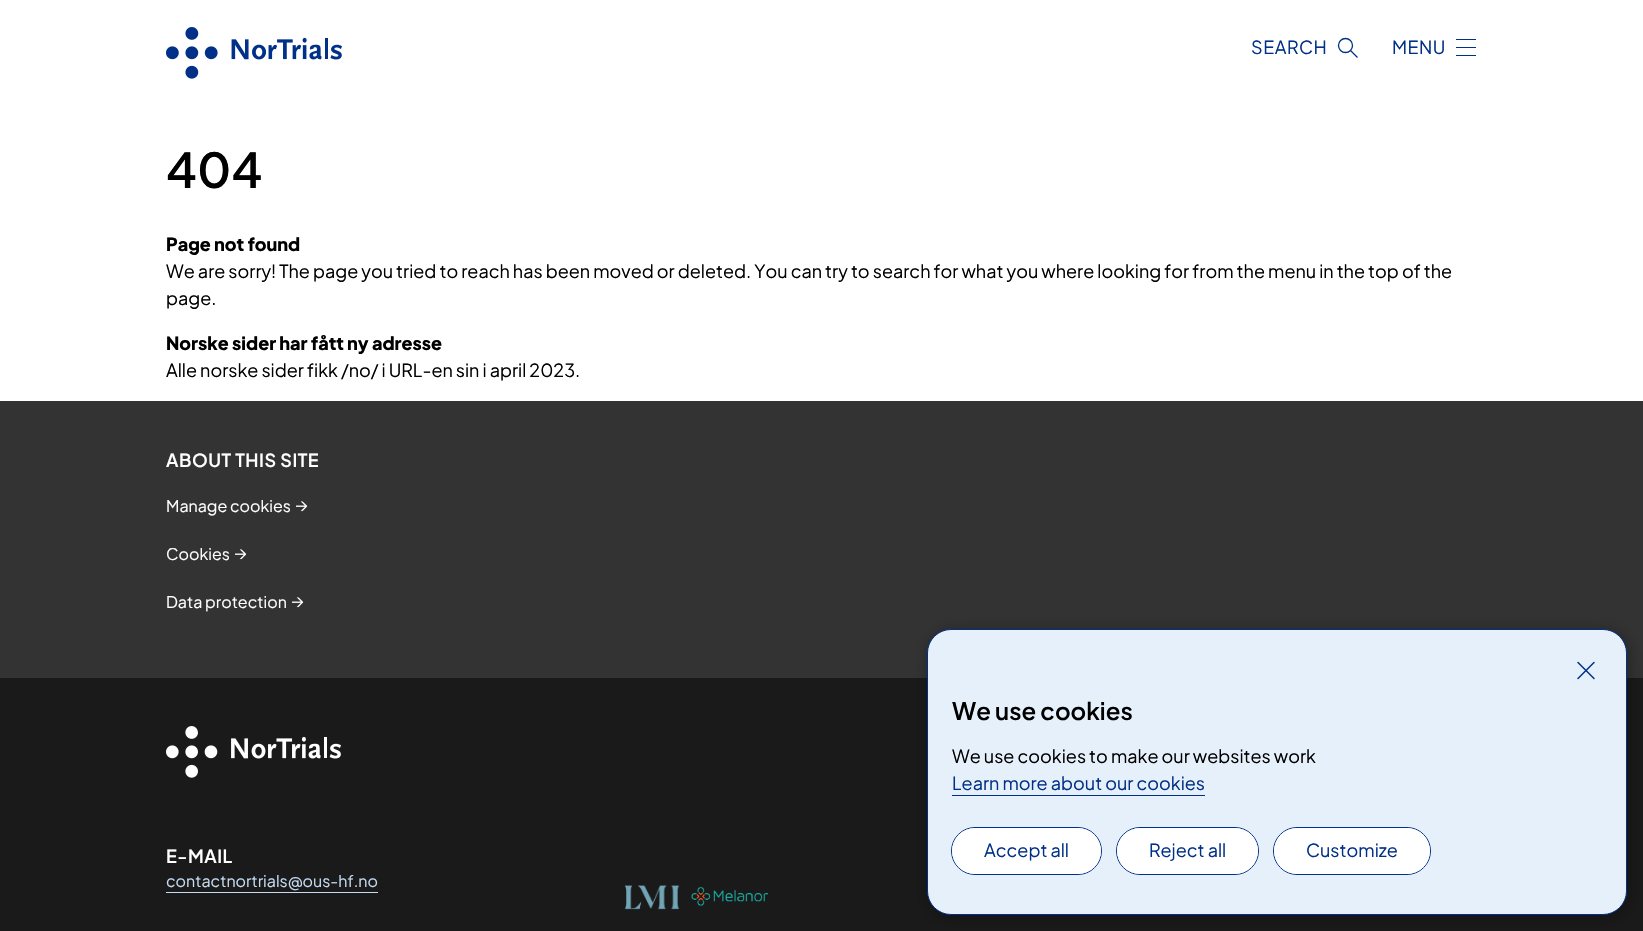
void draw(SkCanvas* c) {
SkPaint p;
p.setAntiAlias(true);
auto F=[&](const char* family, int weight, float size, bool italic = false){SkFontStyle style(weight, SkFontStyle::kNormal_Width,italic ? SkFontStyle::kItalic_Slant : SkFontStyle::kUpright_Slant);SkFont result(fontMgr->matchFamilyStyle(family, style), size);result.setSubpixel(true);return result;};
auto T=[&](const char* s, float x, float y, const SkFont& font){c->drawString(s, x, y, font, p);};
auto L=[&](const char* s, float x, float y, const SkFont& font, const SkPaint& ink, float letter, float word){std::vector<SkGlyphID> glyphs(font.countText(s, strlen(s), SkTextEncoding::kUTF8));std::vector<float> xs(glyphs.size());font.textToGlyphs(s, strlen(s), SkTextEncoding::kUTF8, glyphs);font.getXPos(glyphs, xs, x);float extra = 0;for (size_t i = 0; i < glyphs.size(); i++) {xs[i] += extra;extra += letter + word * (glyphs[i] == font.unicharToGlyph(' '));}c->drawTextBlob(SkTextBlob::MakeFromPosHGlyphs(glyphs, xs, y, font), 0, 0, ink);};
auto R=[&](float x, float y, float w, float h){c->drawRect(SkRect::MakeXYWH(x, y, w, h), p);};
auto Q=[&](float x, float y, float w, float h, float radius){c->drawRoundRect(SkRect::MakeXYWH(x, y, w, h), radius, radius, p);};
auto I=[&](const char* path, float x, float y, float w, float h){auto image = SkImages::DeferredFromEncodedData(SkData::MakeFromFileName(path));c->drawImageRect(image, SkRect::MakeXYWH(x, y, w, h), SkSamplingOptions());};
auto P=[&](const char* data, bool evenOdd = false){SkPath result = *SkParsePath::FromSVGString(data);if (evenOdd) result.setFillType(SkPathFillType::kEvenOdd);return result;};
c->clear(0xffffffff);
I("1.png",166,27,176,52);
auto f1 = F("Plus Jakarta Sans",400,18);
p.setColor(0xff003087);
L("SEARCH",1251,54,f1,p,.5,0);
p.setStroke(true);
p.setStrokeWidth(1.3);
c->drawCircle(1345.5,45.5,7,p);
c->drawPath(P("M1350.5 50.5l7 7"),p);
p.setStroke(false);
L("MENU",1392,54,f1,p,.5,0);
R(1456,39,20,1);
R(1456,55,20,1);
R(1456,47,20,1);
auto f2 = F("Plus Jakarta Sans",600,48);
p.setColor(0xff000000);
T("404",166,188,f2);
auto f3 = F("Plus Jakarta Sans",800,18);
T("Page not found",166,251,f3);
T("We are sorry! The page you tried to reach has been moved or deleted. You can try to search for what you where looking for from the menu in the top of the",166,278,f1);
T("page.",166,305,f1);
T("Norske sider har fått ny adresse",166,350,f3);
T("Alle norske sider fikk /no/ i URL-en sin i april 2023.",166,377,f1);
p.setColor(0xff333333);
R(0,401,1643,277);
auto f4 = F("Plus Jakarta Sans",600,18);
p.setColor(0xffffffff);
L("ABOUT THIS SITE",166,467,f4,p,.5,0);
auto f5 = F("Plus Jakarta Sans",400,16);
T("Manage cookies",166,512,f5);
I("2.png",296,501,12,11);
T("Cookies",166,560,f5);
I("2.png",235,549,12,11);
T("Data protection",166,608,f5);
I("2.png",292,597,12,11);
p.setColor(0xff1a1a1a);
R(0,678,1643,253);
I("3.png",166,726,175,52);
p.setColor(0xffffffff);
L("E-MAIL",166,863,f4,p,.5,0);
p.setColor(0xffc4dbf3);
T("contactnortrials@ous-hf.no",166,887,f5);
R(166,892,212,1);
I("4.png",624,885,144,25);
p.setColor(0x52000000);
p.setMaskFilter(SkMaskFilter::MakeBlur(kNormal_SkBlurStyle, 8));
c->drawRoundRect(SkRect::MakeXYWH(929,631,700,286),24,24,p);
p.setMaskFilter(nullptr);
p.setColor(0xffe6f0fa);
c->drawRoundRect(SkRect::MakeXYWH(927.5,629.5,699,285),23.5,23.5,p);
p.setStroke(true);
p.setStrokeWidth(1);
p.setColor(0xff003087);
c->drawRoundRect(SkRect::MakeXYWH(927.5,629.5,699,285),23.5,23.5,p);
p.setStrokeWidth(1.5);
p.setStrokeCap(SkPaint::kRound_Cap);
c->drawPath(P("M1578 662.5l16 16m-16 0l16-16"),p);
auto f6 = F("Plus Jakarta Sans",600,24);
p.setStroke(false);
p.setColor(0xff000000);
T("We use cookies",952,720,f6);
T("We use cookies to make our websites work",952,763,f1);
p.setColor(0xff003087);
T("Learn more about our cookies",952,790,f1);
R(952,795,253,1);
p.setStroke(true);
p.setStrokeWidth(1);
p.setStrokeCap(SkPaint::kButt_Cap);
c->drawRoundRect(SkRect::MakeXYWH(951.5,827.5,150,47),23.5,23.5,p);
p.setStroke(false);
p.setColor(0xffffffff);
Q(952,828,149,46,23);
p.setColor(0xff003087);
T("Accept all",984,857,f1);
p.setStroke(true);
c->drawRoundRect(SkRect::MakeXYWH(1116.5,827.5,142,47),23.5,23.5,p);
p.setStroke(false);
p.setColor(0xffffffff);
Q(1117,828,141,46,23);
p.setColor(0xff003087);
T("Reject all",1149,857,f1);
p.setStroke(true);
c->drawRoundRect(SkRect::MakeXYWH(1273.5,827.5,157,47),23.5,23.5,p);
p.setStroke(false);
p.setColor(0xffffffff);
Q(1274,828,156,46,23);
p.setColor(0xff003087);
T("Customize",1306,857,f1);
}
